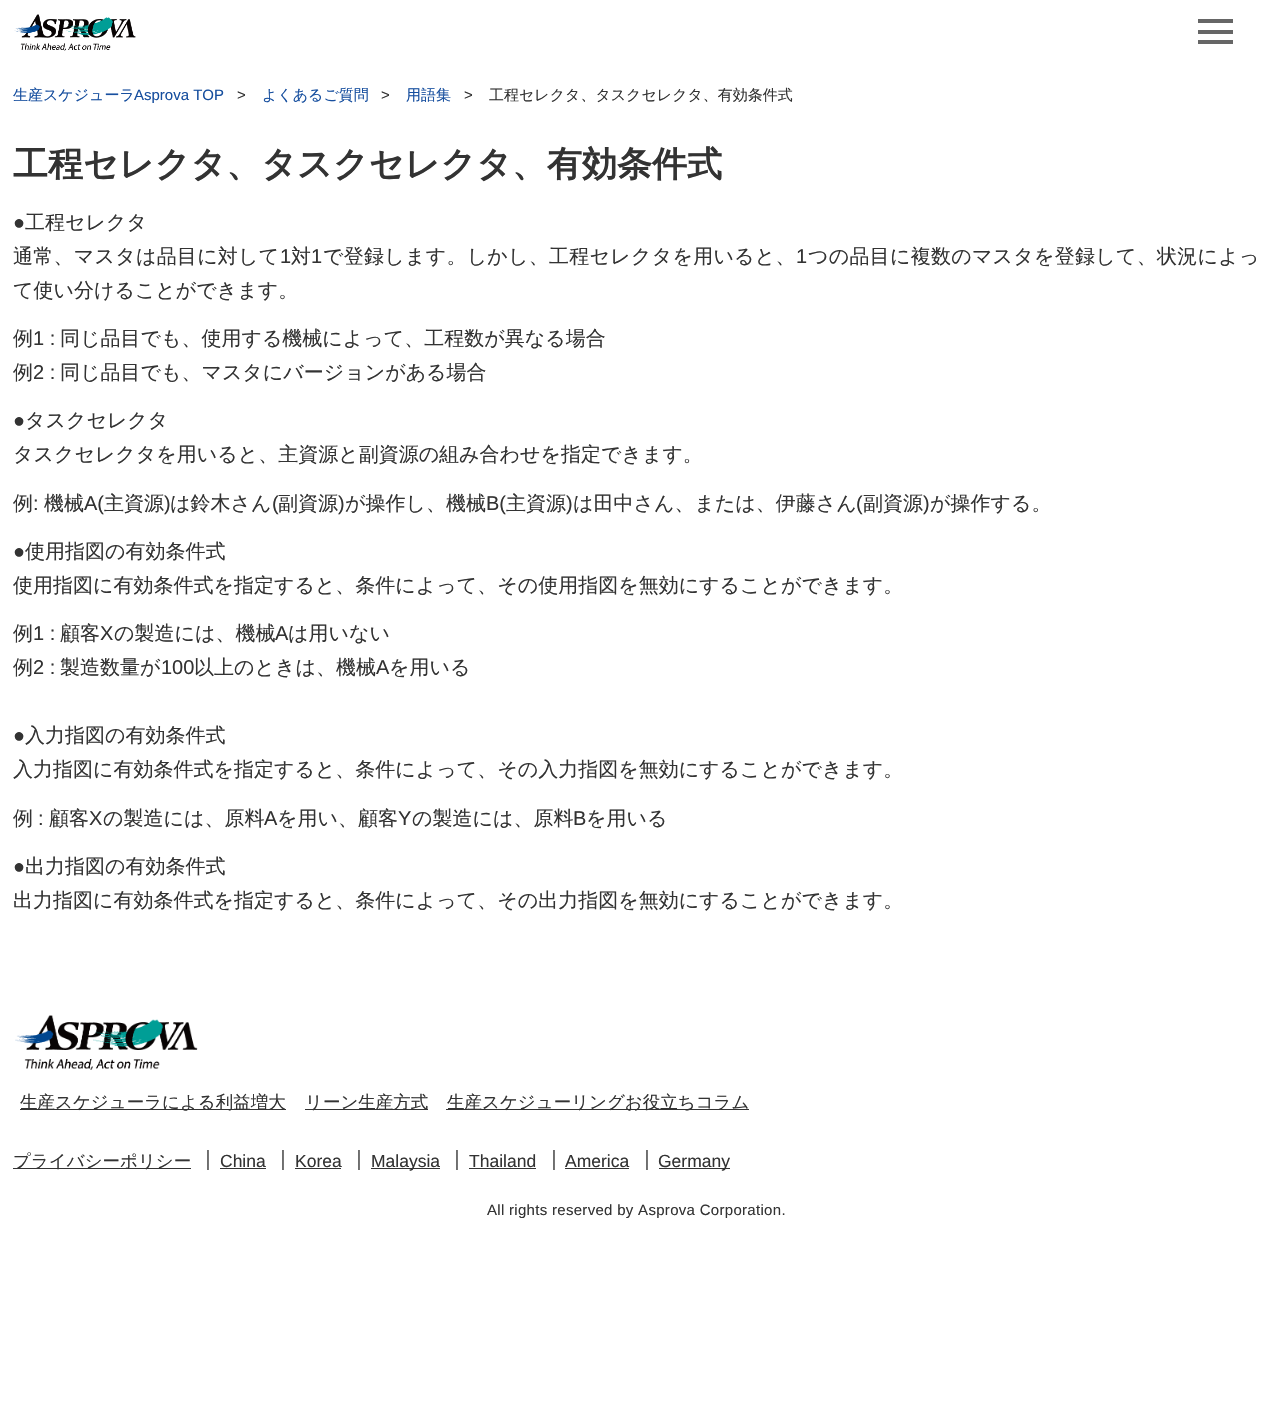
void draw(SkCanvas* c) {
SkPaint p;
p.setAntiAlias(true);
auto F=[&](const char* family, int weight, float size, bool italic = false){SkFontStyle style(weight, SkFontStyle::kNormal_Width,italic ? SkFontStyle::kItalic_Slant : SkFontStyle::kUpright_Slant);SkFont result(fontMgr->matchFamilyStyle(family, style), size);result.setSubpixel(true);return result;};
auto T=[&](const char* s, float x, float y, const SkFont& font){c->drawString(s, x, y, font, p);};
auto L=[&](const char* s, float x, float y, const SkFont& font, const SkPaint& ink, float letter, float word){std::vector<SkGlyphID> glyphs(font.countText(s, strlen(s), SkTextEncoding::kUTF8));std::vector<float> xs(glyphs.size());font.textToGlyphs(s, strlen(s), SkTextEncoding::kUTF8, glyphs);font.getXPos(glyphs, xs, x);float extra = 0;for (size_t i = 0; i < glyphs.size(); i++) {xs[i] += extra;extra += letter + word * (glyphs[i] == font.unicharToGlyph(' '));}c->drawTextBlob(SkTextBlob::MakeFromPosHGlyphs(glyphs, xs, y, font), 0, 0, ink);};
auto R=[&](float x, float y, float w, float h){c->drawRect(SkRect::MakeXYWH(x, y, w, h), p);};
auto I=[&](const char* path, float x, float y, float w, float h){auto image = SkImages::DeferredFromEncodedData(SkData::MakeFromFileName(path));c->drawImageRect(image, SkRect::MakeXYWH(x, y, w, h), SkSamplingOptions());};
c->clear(0xffffffff);
I("1.png",14,14,122,37);
p.setColor(0xff666666);
R(1198,19,35,4);
R(1198,30,35,4);
R(1198,40,35,4);
auto f1 = F("WenQuanYi Zen Hei",500,15);
p.setColor(0xff174f9f);
T("生産スケジューラ",13,100,f1);
auto f2 = F("Liberation Sans",400,15);
T("Asprova TOP",134,100,f2);
p.setColor(0xff333333);
T(">",237,100,f2);
p.setColor(0xff174f9f);
T("よくあるご質問",262,100,f1);
p.setColor(0xff333333);
T(">",381,100,f2);
p.setColor(0xff174f9f);
T("用語集",406,100,f1);
p.setColor(0xff333333);
T(">",464,100,f2);
T("工程セレクタ、タスクセレクタ、有効条件式",489,100,f1);
auto f3 = F("WenQuanYi Zen Hei",700,35);
T("工程セレクタ、タスクセレクタ、有効条件式",13,176,f3);
auto f4 = F("Liberation Sans",400,20);
T("●",13,229,f4);
auto f5 = F("WenQuanYi Zen Hei",500,20);
T("工程セレクタ",25,229,f5);
L("通常、マスタは品目に対して",13,263,f5,p,.25,0);
L("1",280,263,f4,p,.25,0);
L("対",291,263,f5,p,.25,0);
L("1",311,263,f4,p,.25,0);
L("で登録します。しかし、工程セレクタを用いると、",323,263,f5,p,.25,0);
L("1",796,263,f4,p,.25,0);
L("つの品目に複数のマスタを登録して、状況によっ",808,263,f5,p,.25,0);
T("て使い分けることができます。",13,297,f5);
T("例",13,345,f5);
T("1 :",33,345,f4);
T("同じ品目でも、使用する機械によって、工程数が異なる場合",60,345,f5);
T("例",13,379,f5);
T("2 :",33,379,f4);
T("同じ品目でも、マスタにバージョンがある場合",60,379,f5);
T("●",13,427,f4);
T("タスクセレクタ",25,427,f5);
T("タスクセレクタを用いると、主資源と副資源の組み合わせを指定できます。",13,461,f5);
T("例",13,510,f5);
T(":",33,510,f4);
T("機械",44,510,f5);
T("A(",84,510,f4);
T("主資源",104,510,f5);
T(")",164,510,f4);
T("は鈴木さん",170,510,f5);
T("(",272,510,f4);
T("副資源",278,510,f5);
T(")",338,510,f4);
T("が操作し、機械",345,510,f5);
T("B(",486,510,f4);
T("主資源",506,510,f5);
T(")",566,510,f4);
T("は田中さん、または、伊藤さん",573,510,f5);
T("(",856,510,f4);
T("副資源",863,510,f5);
T(")",923,510,f4);
T("が操作する。",930,510,f5);
T("●",13,558,f4);
T("使用指図の有効条件式",25,558,f5);
T("使用指図に有効条件式を指定すると、条件によって、その使用指図を無効にすることができます。",13,592,f5);
T("例",13,640,f5);
T("1 :",33,640,f4);
T("顧客",60,640,f5);
T("X",100,640,f4);
T("の製造には、機械",114,640,f5);
T("A",275,640,f4);
T("は用いない",288,640,f5);
T("例",13,674,f5);
T("2 :",33,674,f4);
T("製造数量が",60,674,f5);
T("100",161,674,f4);
T("以上のときは、機械",194,674,f5);
T("A",376,674,f4);
T("を用いる",389,674,f5);
T("●",13,742,f4);
T("入力指図の有効条件式",25,742,f5);
T("入力指図に有効条件式を指定すると、条件によって、その入力指図を無効にすることができます。",13,776,f5);
T("例",13,825,f5);
T(":",38,825,f4);
T("顧客",49,825,f5);
T("X",89,825,f4);
T("の製造には、原料",103,825,f5);
T("A",264,825,f4);
T("を用い、顧客",277,825,f5);
T("Y",398,825,f4);
T("の製造には、原料",412,825,f5);
T("B",573,825,f4);
T("を用いる",586,825,f5);
T("●",13,873,f4);
T("出力指図の有効条件式",25,873,f5);
T("出力指図に有効条件式を指定すると、条件によって、その出力指図を無効にすることができます。",13,907,f5);
I("2.png",15,1015,183,55);
R(20,1109,266,1);
auto f6 = F("WenQuanYi Zen Hei",500,17.5);
T("生産スケジューラによる利益増大",20,1108,f6);
R(305,1109,123,1);
T("リーン生産方式",305,1108,f6);
R(446,1109,303,1);
T("生産スケジューリングお役立ちコラム",447,1108,f6);
R(13,1168,178,1);
T("プライバシーポリシー",13,1167,f6);
T("｜",198,1165,f5);
auto f7 = F("Liberation Sans",400,17.5);
T("China",220,1167,f7);
R(220,1168,46,1);
T("｜",273,1165,f5);
T("Korea",295,1167,f7);
R(295,1168,46,1);
T("｜",349,1165,f5);
R(371,1168,69,1);
T("Malaysia",371,1167,f7);
T("｜",447,1165,f5);
T("Thailand",469,1167,f7);
R(469,1168,67,1);
T("｜",544,1165,f5);
T("America",565,1167,f7);
R(565,1168,64,1);
T("｜",637,1165,f5);
R(659,1168,71,1);
T("Germany",658,1167,f7);
L("All rights reserved by Asprova Corporation.",487,1215,f2,p,.3,0);
}
